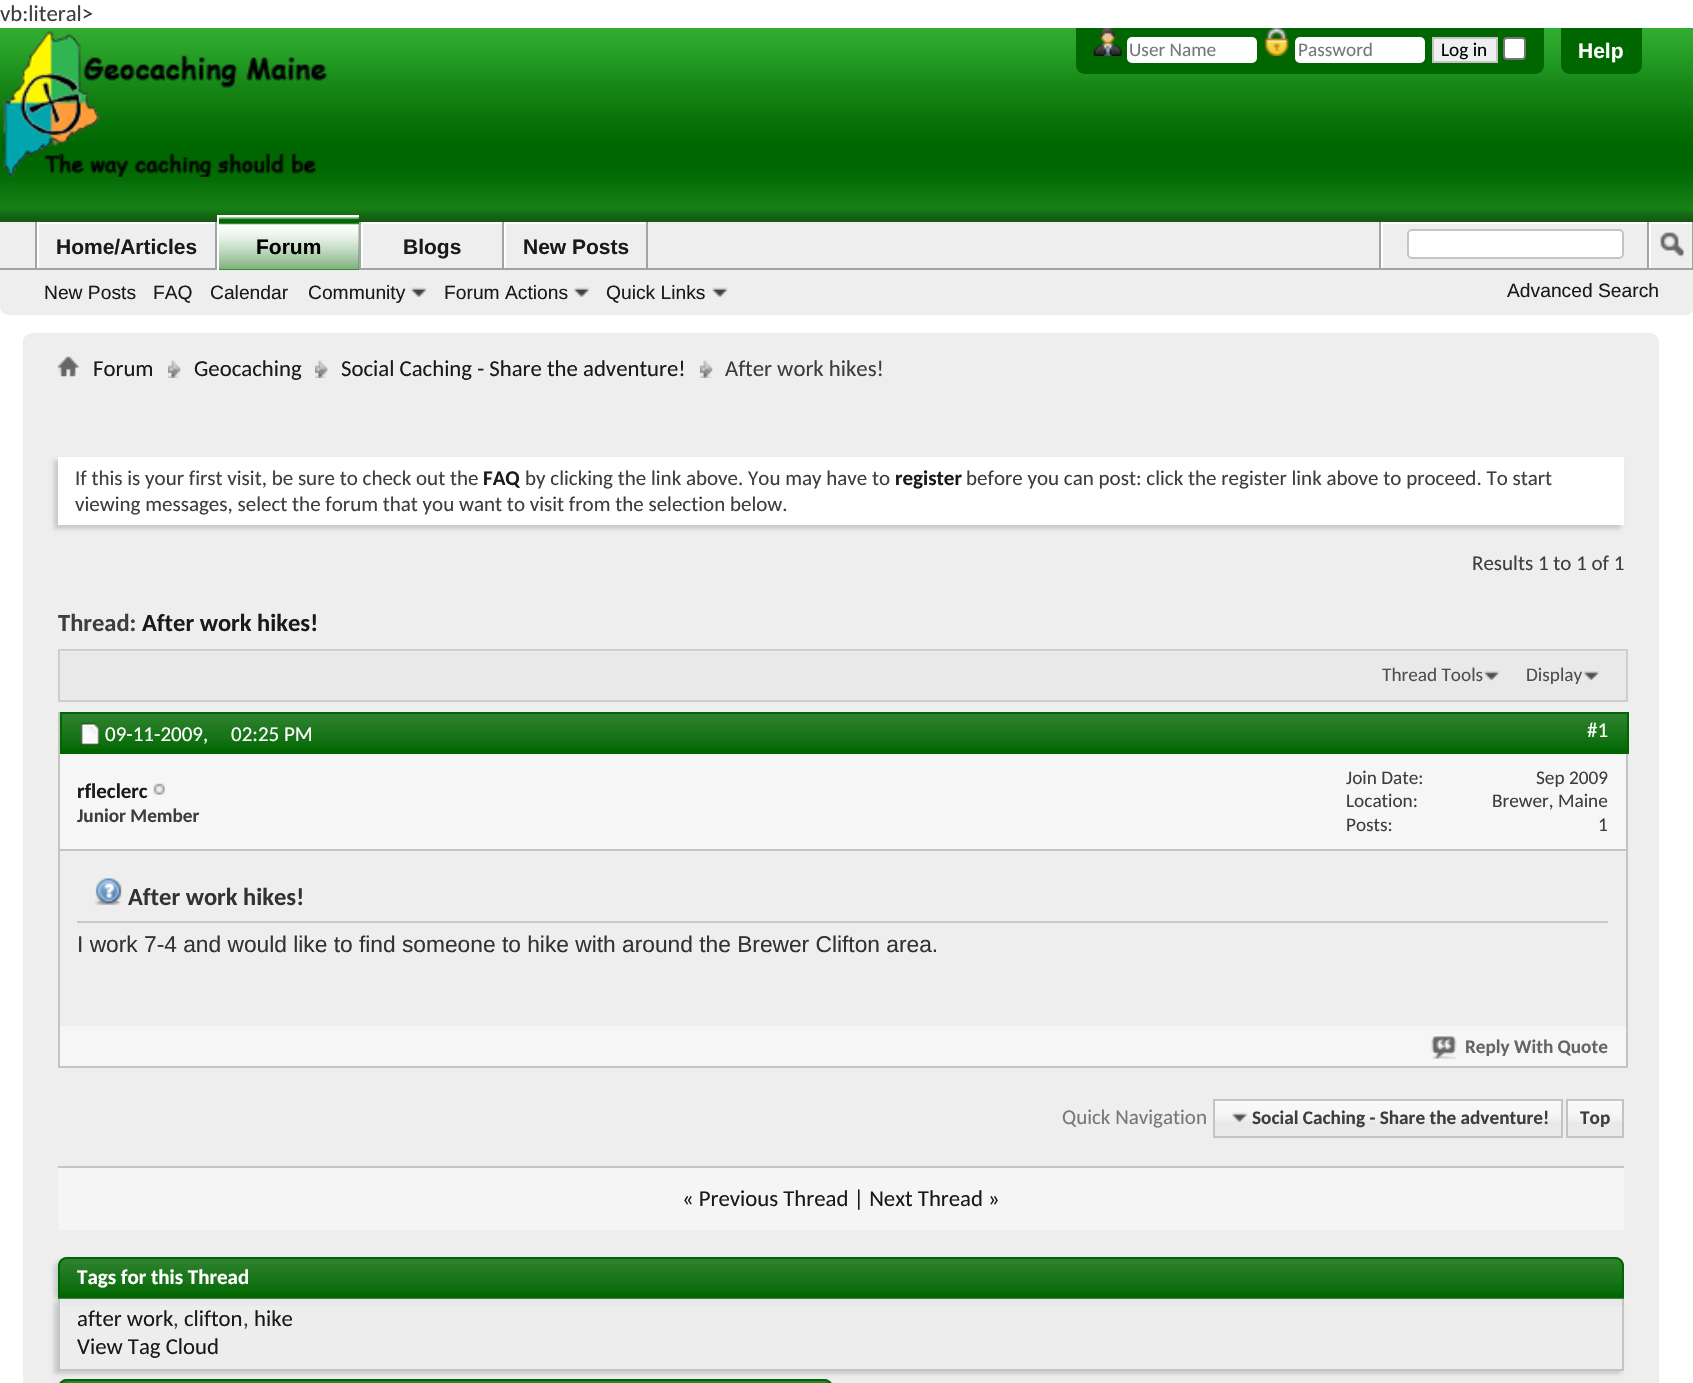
#include "include/core/SkBlurTypes.h"
#include "include/core/SkCanvas.h"
#include "include/core/SkData.h"
#include "include/core/SkFont.h"
#include "include/core/SkFontMgr.h"
#include "include/core/SkImage.h"
#include "include/core/SkMaskFilter.h"
#include "include/core/SkPaint.h"
#include "include/core/SkPathBuilder.h"
#include "include/core/SkTextBlob.h"
#include "include/effects/SkDashPathEffect.h"
#include "include/effects/SkGradientShader.h"
#include "include/utils/SkParsePath.h"

extern sk_sp<SkFontMgr> fontMgr;

void draw(SkCanvas* canvas) {
  SkPaint p;
  p.setAntiAlias(true);
  canvas->clear(SK_ColorWHITE);
  canvas->drawImageRect(SkImages::DeferredFromEncodedData(SkData::MakeFromFileName("images/1.png")), SkRect::MakeLTRB(0, 28, 1693, 222), SkSamplingOptions());
  canvas->drawImageRect(SkImages::DeferredFromEncodedData(SkData::MakeFromFileName("images/2.png")), SkRect::MakeLTRB(3, 31, 328, 177), SkSamplingOptions());
  p.setColor(SkColorSetRGB(0, 102, 0));
  canvas->drawPath(SkPathBuilder().moveTo(1076, 28).lineTo(1544, 28).lineTo(1544, 65).cubicTo(1544, 70, 1540, 74, 1535, 74).lineTo(1085, 74).cubicTo(1080, 74, 1076, 70, 1076, 65).close().detach(), p);
  canvas->drawImageRect(SkImages::DeferredFromEncodedData(SkData::MakeFromFileName("images/3.png")), SkRect::MakeLTRB(1093, 28, 1122, 56), SkSamplingOptions());
  p.setColor(SK_ColorWHITE);
  canvas->drawRoundRect(SkRect::MakeLTRB(1127, 37, 1257, 63), 5, 5, p);
  canvas->drawImageRect(SkImages::DeferredFromEncodedData(SkData::MakeFromFileName("images/4.png")), SkRect::MakeLTRB(1264, 28, 1289, 56), SkSamplingOptions());
  canvas->drawRoundRect(SkRect::MakeLTRB(1295, 37, 1425, 63), 5, 5, p);
  p.setColor(SkColorSetRGB(239, 239, 239));
  canvas->drawRect(SkRect::MakeLTRB(1433, 38, 1497, 62), p);
  p.setStyle(SkPaint::kStroke_Style);
  p.setStrokeWidth(2);
  p.setColor(SkColorSetRGB(196, 196, 196));
  canvas->drawRect(SkRect::MakeLTRB(1433, 38, 1497, 62), p);
  p.setStyle(SkPaint::kFill_Style);
  p.setColor(SK_ColorWHITE);
  canvas->drawRoundRect(SkRect::MakeLTRB(1504, 38, 1525, 59), 3, 3, p);
  p.setStyle(SkPaint::kStroke_Style);
  p.setColor(SkColorSetRGB(118, 118, 118));
  canvas->drawRoundRect(SkRect::MakeLTRB(1504, 38, 1525, 59), 3, 3, p);
  p.setStyle(SkPaint::kFill_Style);
  p.setColor(SkColorSetRGB(0, 102, 0));
  canvas->drawPath(SkPathBuilder().moveTo(1561, 28).lineTo(1642, 28).lineTo(1642, 65).cubicTo(1642, 70, 1638, 74, 1633, 74).lineTo(1570, 74).cubicTo(1565, 74, 1561, 70, 1561, 65).close().detach(), p);
  p.setColor(SkColorSetRGB(239, 238, 238));
  canvas->drawPath(SkPathBuilder().moveTo(0, 222).lineTo(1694, 222).lineTo(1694, 306).cubicTo(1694, 311, 1690, 315, 1685, 315).lineTo(9, 315).cubicTo(4, 315, 0, 311, 0, 306).close().detach(), p);
  p.setColor(SkColorSetRGB(163, 163, 163));
  canvas->drawRect(SkRect::MakeLTRB(215, 222, 217, 270), p);
  canvas->drawRect(SkRect::MakeLTRB(35, 222, 37, 270), p);
  p.setColor(SK_ColorWHITE);
  canvas->drawRect(SkRect::MakeLTRB(37, 222, 215, 224), p);
  canvas->drawRect(SkRect::MakeLTRB(37, 222, 39, 270), p);
  p.setColor(SkColorSetRGB(163, 163, 163));
  canvas->drawRect(SkRect::MakeLTRB(359, 222, 361, 268), p);
  canvas->drawRect(SkRect::MakeLTRB(502, 222, 504, 270), p);
  p.setColor(SK_ColorWHITE);
  canvas->drawRect(SkRect::MakeLTRB(361, 222, 502, 224), p);
  canvas->drawRect(SkRect::MakeLTRB(361, 222, 363, 270), p);
  p.setColor(SkColorSetRGB(163, 163, 163));
  canvas->drawRect(SkRect::MakeLTRB(646, 222, 648, 270), p);
  p.setColor(SK_ColorWHITE);
  canvas->drawRect(SkRect::MakeLTRB(504, 222, 646, 224), p);
  canvas->drawRect(SkRect::MakeLTRB(504, 222, 506, 270), p);
  p.setColor(SkColorSetRGB(163, 163, 163));
  canvas->drawRect(SkRect::MakeLTRB(0, 268, 1693, 270), p);
  p.setColor(SkColorSetRGB(0, 102, 0));
  canvas->drawRect(SkRect::MakeLTRB(219, 217, 359, 270), p);
  canvas->drawImageRect(SkImages::DeferredFromEncodedData(SkData::MakeFromFileName("images/5.png")), SkRect::MakeLTRB(219, 217, 359, 270), SkSamplingOptions());
  p.setColor(SK_ColorWHITE);
  canvas->drawRect(SkRect::MakeLTRB(217, 215, 359, 217), p);
  canvas->drawRect(SkRect::MakeLTRB(217, 215, 219, 270), p);
  canvas->drawImageRect(SkImages::DeferredFromEncodedData(SkData::MakeFromFileName("images/6.png")), SkRect::MakeLTRB(360, 224, 361, 245), SkSamplingOptions());
  canvas->drawImageRect(SkImages::DeferredFromEncodedData(SkData::MakeFromFileName("images/7.png")), SkRect::MakeLTRB(411, 287, 427, 297), SkSamplingOptions());
  canvas->drawImageRect(SkImages::DeferredFromEncodedData(SkData::MakeFromFileName("images/8.png")), SkRect::MakeLTRB(573, 287, 590, 297), SkSamplingOptions());
  canvas->drawImageRect(SkImages::DeferredFromEncodedData(SkData::MakeFromFileName("images/9.png")), SkRect::MakeLTRB(712, 287, 728, 297), SkSamplingOptions());
  p.setColor(SkColorSetRGB(163, 163, 163));
  canvas->drawRect(SkRect::MakeLTRB(1379, 222, 1381, 268), p);
  p.setColor(SK_ColorWHITE);
  canvas->drawRect(SkRect::MakeLTRB(1381, 222, 1647, 224), p);
  canvas->drawRect(SkRect::MakeLTRB(1381, 222, 1383, 268), p);
  canvas->drawRoundRect(SkRect::MakeLTRB(1408, 230, 1623, 258), 4, 4, p);
  p.setStyle(SkPaint::kStroke_Style);
  p.setColor(SkColorSetRGB(196, 196, 196));
  canvas->drawRoundRect(SkRect::MakeLTRB(1408, 230, 1623, 258), 4, 4, p);
  p.setStyle(SkPaint::kFill_Style);
  p.setColor(SkColorSetRGB(163, 163, 163));
  canvas->drawRect(SkRect::MakeLTRB(1692, 222, 1693, 268), p);
  canvas->drawRect(SkRect::MakeLTRB(1647, 222, 1649, 268), p);
  p.setColor(SK_ColorWHITE);
  canvas->drawRect(SkRect::MakeLTRB(1649, 222, 1692, 224), p);
  canvas->drawRect(SkRect::MakeLTRB(1649, 222, 1651, 268), p);
  canvas->drawImageRect(SkImages::DeferredFromEncodedData(SkData::MakeFromFileName("images/10.png")), SkRect::MakeLTRB(1660, 232, 1684, 258), SkSamplingOptions());
  p.setColor(SkColorSetRGB(239, 238, 238));
  canvas->drawRoundRect(SkRect::MakeLTRB(23, 333, 1659, 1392), 9, 9, p);
  canvas->drawImageRect(SkImages::DeferredFromEncodedData(SkData::MakeFromFileName("images/11.png")), SkRect::MakeLTRB(57, 356, 79, 377), SkSamplingOptions());
  canvas->drawImageRect(SkImages::DeferredFromEncodedData(SkData::MakeFromFileName("images/12.png")), SkRect::MakeLTRB(168, 360, 181, 378), SkSamplingOptions());
  canvas->drawImageRect(SkImages::DeferredFromEncodedData(SkData::MakeFromFileName("images/13.png")), SkRect::MakeLTRB(315, 360, 328, 378), SkSamplingOptions());
  canvas->drawImageRect(SkImages::DeferredFromEncodedData(SkData::MakeFromFileName("images/12.png")), SkRect::MakeLTRB(700, 360, 713, 378), SkSamplingOptions());
  p.setColor(SkColorSetRGB(199, 203, 204));
  p.setMaskFilter(SkMaskFilter::MakeBlur(kNormal_SkBlurStyle, 2));
  canvas->drawRect(SkRect::MakeLTRB(54, 460, 1621, 529), p);
  p.setMaskFilter(nullptr);
  p.setColor(SK_ColorWHITE);
  canvas->drawRect(SkRect::MakeLTRB(58, 457, 1624, 525), p);
  p.setColor(SkColorSetRGB(233, 233, 233));
  canvas->drawRect(SkRect::MakeLTRB(60, 652, 1626, 700), p);
  p.setStyle(SkPaint::kStroke_Style);
  p.setColor(SkColorSetRGB(206, 206, 206));
  canvas->drawRect(SkRect::MakeLTRB(59, 650, 1627, 701), p);
  canvas->drawImageRect(SkImages::DeferredFromEncodedData(SkData::MakeFromFileName("images/14.png")), SkRect::MakeLTRB(1483, 670, 1500, 682), SkSamplingOptions());
  canvas->drawImageRect(SkImages::DeferredFromEncodedData(SkData::MakeFromFileName("images/15.png")), SkRect::MakeLTRB(1583, 671, 1600, 682), SkSamplingOptions());
  p.setColor(SkColorSetRGB(196, 196, 196));
  canvas->drawRect(SkRect::MakeLTRB(59, 713, 1627, 1067), p);
  p.setStyle(SkPaint::kFill_Style);
  p.setColor(SkColorSetRGB(0, 102, 0));
  canvas->drawRect(SkRect::MakeLTRB(62, 714, 1627, 752), p);
  canvas->drawImageRect(SkImages::DeferredFromEncodedData(SkData::MakeFromFileName("images/16.png")), SkRect::MakeLTRB(59, 714, 1627, 749), SkSamplingOptions());
  p.setStyle(SkPaint::kStroke_Style);
  canvas->drawRect(SkRect::MakeLTRB(61, 713, 1628, 753), p);
  canvas->drawImageRect(SkImages::DeferredFromEncodedData(SkData::MakeFromFileName("images/17.png")), SkRect::MakeLTRB(80, 722, 101, 746), SkSamplingOptions());
  p.setStyle(SkPaint::kFill_Style);
  p.setColor(SkColorSetRGB(246, 246, 246));
  canvas->drawRect(SkRect::MakeLTRB(60, 754, 1626, 849), p);
  p.setColor(SkColorSetRGB(196, 196, 196));
  canvas->drawRect(SkRect::MakeLTRB(60, 849, 1626, 851), p);
  canvas->drawImageRect(SkImages::DeferredFromEncodedData(SkData::MakeFromFileName("images/18.png")), SkRect::MakeLTRB(153, 783, 165, 795), SkSamplingOptions());
  p.setColor(SkColorSetRGB(200, 200, 200));
  canvas->drawRect(SkRect::MakeLTRB(77, 921, 1608, 923), p);
  canvas->drawImageRect(SkImages::DeferredFromEncodedData(SkData::MakeFromFileName("images/19.png")), SkRect::MakeLTRB(94, 878, 122, 905), SkSamplingOptions());
  p.setColor(SkColorSetRGB(246, 246, 246));
  canvas->drawRect(SkRect::MakeLTRB(60, 1026, 1626, 1066), p);
  canvas->drawImageRect(SkImages::DeferredFromEncodedData(SkData::MakeFromFileName("images/20.png")), SkRect::MakeLTRB(1431, 1036, 1457, 1059), SkSamplingOptions());
  p.setColor(SkColorSetRGB(233, 233, 233));
  canvas->drawRect(SkRect::MakeLTRB(1215, 1101, 1561, 1136), p);
  canvas->drawImageRect(SkImages::DeferredFromEncodedData(SkData::MakeFromFileName("images/21.png")), SkRect::MakeLTRB(1215, 1101, 1561, 1122), SkSamplingOptions());
  canvas->drawRect(SkRect::MakeLTRB(1568, 1101, 1622, 1136), p);
  canvas->drawImageRect(SkImages::DeferredFromEncodedData(SkData::MakeFromFileName("images/22.png")), SkRect::MakeLTRB(1568, 1101, 1622, 1122), SkSamplingOptions());
  p.setStyle(SkPaint::kStroke_Style);
  p.setColor(SkColorSetRGB(196, 196, 196));
  canvas->drawRect(SkRect::MakeLTRB(1214, 1100, 1562, 1137), p);
  canvas->drawImageRect(SkImages::DeferredFromEncodedData(SkData::MakeFromFileName("images/23.png")), SkRect::MakeLTRB(1231, 1112, 1248, 1124), SkSamplingOptions());
  canvas->drawRect(SkRect::MakeLTRB(1567, 1100, 1623, 1137), p);
  p.setStyle(SkPaint::kFill_Style);
  p.setColor(SkColorSetRGB(245, 245, 245));
  canvas->drawRect(SkRect::MakeLTRB(58, 1168, 1624, 1230), p);
  p.setColor(SkColorSetRGB(196, 196, 196));
  canvas->drawRect(SkRect::MakeLTRB(58, 1166, 1624, 1168), p);
  p.setColor(SkColorSetRGB(199, 203, 204));
  p.setMaskFilter(SkMaskFilter::MakeBlur(kNormal_SkBlurStyle, 2));
  canvas->drawRoundRect(SkRect::MakeLTRB(54, 1260, 1621, 1302), 9, 9, p);
  p.setMaskFilter(nullptr);
  p.setColor(SkColorSetRGB(0, 102, 0));
  canvas->drawPath(SkPathBuilder().moveTo(67, 1257).lineTo(1615, 1257).cubicTo(1620, 1257, 1624, 1261, 1624, 1266).lineTo(1624, 1299).lineTo(58, 1299).lineTo(58, 1266).cubicTo(58, 1261, 62, 1257, 67, 1257).close().detach(), p);
  canvas->drawImageRect(SkImages::DeferredFromEncodedData(SkData::MakeFromFileName("images/24.png")), SkRect::MakeLTRB(58, 1258, 1624, 1294), SkSamplingOptions());
  p.setStyle(SkPaint::kStroke_Style);
  canvas->drawPath(SkPathBuilder().moveTo(67, 1258).lineTo(1615, 1258).cubicTo(1619.5f, 1258, 1623, 1261.5f, 1623, 1266).lineTo(1623, 1298).lineTo(59, 1298).lineTo(59, 1266).cubicTo(59, 1261.5f, 62.5f, 1258, 67, 1258).close().detach(), p);
  p.setStyle(SkPaint::kFill_Style);
  p.setColor(SkColorSetRGB(199, 203, 204));
  p.setMaskFilter(SkMaskFilter::MakeBlur(kNormal_SkBlurStyle, 2));
  canvas->drawRect(SkRect::MakeLTRB(54, 1302, 1621, 1374), p);
  p.setMaskFilter(nullptr);
  p.setColor(SkColorSetRGB(237, 237, 237));
  canvas->drawRect(SkRect::MakeLTRB(60, 1299, 1622, 1369), p);
  canvas->drawImageRect(SkImages::DeferredFromEncodedData(SkData::MakeFromFileName("images/25.png")), SkRect::MakeLTRB(58, 1298, 1624, 1306), SkSamplingOptions());
  p.setColor(SkColorSetRGB(196, 196, 196));
  canvas->drawRect(SkRect::MakeLTRB(1622, 1299, 1624, 1370), p);
  canvas->drawRect(SkRect::MakeLTRB(58, 1369, 1624, 1371), p);
  canvas->drawRect(SkRect::MakeLTRB(58, 1299, 60, 1370), p);
  p.setColor(SkColorSetRGB(199, 203, 204));
  p.setMaskFilter(SkMaskFilter::MakeBlur(kNormal_SkBlurStyle, 2));
  canvas->drawRoundRect(SkRect::MakeLTRB(54, 1383, 830, 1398), 9, 9, p);
  p.setMaskFilter(nullptr);
  p.setColor(SkColorSetRGB(0, 102, 0));
  canvas->drawPath(SkPathBuilder().moveTo(67, 1379).lineTo(824, 1379).cubicTo(829, 1379, 833, 1383, 833, 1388).lineTo(833, 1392).lineTo(58, 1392).lineTo(58, 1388).cubicTo(58, 1383, 62, 1379, 67, 1379).close().detach(), p);
  p.setColor(SkColorSetARGB(46, 255, 255, 255));
  canvas->drawRect(SkRect::MakeLTRB(60, 1380, 831, 1383), p);
  p.setStyle(SkPaint::kStroke_Style);
  p.setColor(SkColorSetRGB(0, 102, 0));
  canvas->drawPath(SkPathBuilder().moveTo(67, 1380).lineTo(824, 1380).cubicTo(828.5f, 1380, 832, 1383.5f, 832, 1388).lineTo(832, 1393).lineTo(59, 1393).lineTo(59, 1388).cubicTo(59, 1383.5f, 62.5f, 1380, 67, 1380).close().detach(), p);
  SkFont font1(fontMgr->matchFamilyStyle("Carlito", SkFontStyle::Normal()), 22.75f);
  font1.setSubpixel(true);
  p.setStyle(SkPaint::kFill_Style);
  p.setColor(SkColorSetRGB(62, 62, 62));
  canvas->drawString("vb:literal>", 0, 21, font1, p);
  SkFont font2(fontMgr->matchFamilyStyle("Carlito", SkFontStyle::Normal()), 19.25f);
  font2.setSubpixel(true);
  p.setColor(SkColorSetRGB(119, 119, 119));
  canvas->drawString("User Name", 1129, 56, font2, p);
  canvas->drawString("Password", 1298, 56, font2, p);
  p.setColor(SK_ColorBLACK);
  canvas->drawString("Log in", 1441, 56, font2, p);
  SkFont font3(fontMgr->matchFamilyStyle("Liberation Sans", SkFontStyle::Bold()), 21);
  font3.setSubpixel(true);
  p.setColor(SK_ColorWHITE);
  canvas->drawString("Help", 1578, 58, font3, p);
  p.setColor(SkColorSetRGB(26, 26, 26));
  canvas->drawString("Home/Articles", 56, 254, font3, p);
  p.setColor(SK_ColorBLACK);
  canvas->drawString("Forum", 256, 254, font3, p);
  p.setColor(SkColorSetRGB(26, 26, 26));
  canvas->drawString("Blogs", 403, 254, font3, p);
  canvas->drawString("New Posts", 523, 254, font3, p);
  SkFont font4(fontMgr->matchFamilyStyle("Liberation Sans", SkFontStyle::Normal()), 19.25f);
  font4.setSubpixel(true);
  canvas->drawString("New Posts", 44, 299, font4, p);
  canvas->drawString("FAQ", 153, 299, font4, p);
  canvas->drawString("Calendar", 210, 299, font4, p);
  canvas->drawString("Community", 308, 299, font4, p);
  canvas->drawString("Forum Actions", 444, 299, font4, p);
  canvas->drawString("Quick Links", 606, 299, font4, p);
  canvas->drawString("Advanced Search", 1507, 297, font4, p);
  canvas->drawString("Forum", 93, 376, font1, p);
  canvas->drawString("Geocaching", 194, 376, font1, p);
  canvas->drawString("Social Caching - Share the adventure!", 341, 376, font1, p);
  p.setColor(SkColorSetRGB(62, 62, 62));
  canvas->drawString("After work hikes!", 725, 376, font1, p);
  SkFont font5(fontMgr->matchFamilyStyle("Carlito", SkFontStyle::Normal()), 21);
  font5.setSubpixel(true);
  canvas->drawString("If this is your first visit, be sure to check out the", 75, 485, font5, p);
  SkFont font6(fontMgr->matchFamilyStyle("Carlito", SkFontStyle::Bold()), 21);
  font6.setSubpixel(true);
  p.setColor(SkColorSetRGB(26, 26, 26));
  canvas->drawString("FAQ", 483, 485, font6, p);
  p.setColor(SkColorSetRGB(62, 62, 62));
  canvas->drawString("by clicking the link above. You may have to", 525, 485, font5, p);
  p.setColor(SkColorSetRGB(26, 26, 26));
  canvas->drawString("register", 895, 485, font6, p);
  p.setColor(SkColorSetRGB(62, 62, 62));
  canvas->drawString("before you can post: click the register link above to proceed. To start", 966, 485, font5, p);
  canvas->drawString("viewing messages, select the forum that you want to visit from the selection below.", 75, 511, font5, p);
  canvas->drawString("Results 1 to 1 of 1", 1472, 570, font5, p);
  SkFont font7(fontMgr->matchFamilyStyle("Carlito", SkFontStyle::Bold()), 24.5f);
  font7.setSubpixel(true);
  canvas->drawString("Thread:", 58, 631, font7, p);
  p.setColor(SkColorSetRGB(26, 26, 26));
  canvas->drawString("After work hikes!", 142, 631, font7, p);
  p.setColor(SkColorSetRGB(78, 78, 78));
  canvas->drawString("Thread Tools", 1382, 681, font2, p);
  canvas->drawString("Display", 1526, 681, font2, p);
  p.setColor(SK_ColorWHITE);
  canvas->drawString("09-11-2009,", 105, 741, font5, p);
  canvas->drawString("02:25 PM", 231, 741, font5, p);
  canvas->drawString("#1", 1587, 737, font5, p);
  p.setColor(SkColorSetRGB(26, 26, 26));
  canvas->drawString("rfleclerc", 77, 798, font6, p);
  SkFont font8(fontMgr->matchFamilyStyle("Carlito", SkFontStyle::Bold()), 19.25f);
  font8.setSubpixel(true);
  p.setColor(SkColorSetRGB(62, 62, 62));
  canvas->drawString("Junior Member", 77, 822, font8, p);
  canvas->drawString("Join Date:", 1346, 784, font2, p);
  canvas->drawString("Sep 2009", 1536, 784, font2, p);
  canvas->drawString("Location:", 1346, 807, font2, p);
  canvas->drawString("Brewer, Maine", 1492, 807, font2, p);
  canvas->drawString("Posts:", 1346, 831, font2, p);
  canvas->drawString("1", 1598, 831, font2, p);
  p.setColor(SkColorSetRGB(51, 51, 51));
  canvas->drawString("After work hikes!", 128, 905, font7, p);
  SkFont font9(fontMgr->matchFamilyStyle("Liberation Sans", SkFontStyle::Normal()), 22.75f);
  font9.setSubpixel(true);
  canvas->drawString("I work 7-4 and would like to find someone to hike with around the Brewer Clifton area.", 77, 952, font9, p);
  p.setColor(SkColorSetRGB(101, 101, 101));
  canvas->drawString("Reply With Quote", 1465, 1053, font8, p);
  p.setColor(SkColorSetRGB(119, 119, 119));
  canvas->drawString("Quick Navigation", 1062, 1124, font5, p);
  p.setColor(SkColorSetRGB(62, 62, 62));
  canvas->drawString("Social Caching - Share the adventure!", 1252, 1124, font8, p);
  canvas->drawString("Top", 1580, 1124, font8, p);
  p.setColor(SkColorSetRGB(26, 26, 26));
  canvas->drawString("« Previous Thread | Next Thread »", 682, 1206, font1, p);
  p.setColor(SK_ColorWHITE);
  canvas->drawString("Tags for this Thread", 77, 1284, font6, p);
  p.setColor(SkColorSetRGB(26, 26, 26));
  canvas->drawString("after work", 77, 1326, font1, p);
  p.setColor(SkColorSetRGB(62, 62, 62));
  canvas->drawString(",", 173, 1326, font1, p);
  p.setColor(SkColorSetRGB(26, 26, 26));
  canvas->drawString("clifton", 184, 1326, font1, p);
  p.setColor(SkColorSetRGB(62, 62, 62));
  canvas->drawString(",", 243, 1326, font1, p);
  p.setColor(SkColorSetRGB(26, 26, 26));
  canvas->drawString("hike", 254, 1326, font1, p);
  canvas->drawString("View Tag Cloud", 77, 1354, font1, p);
}
